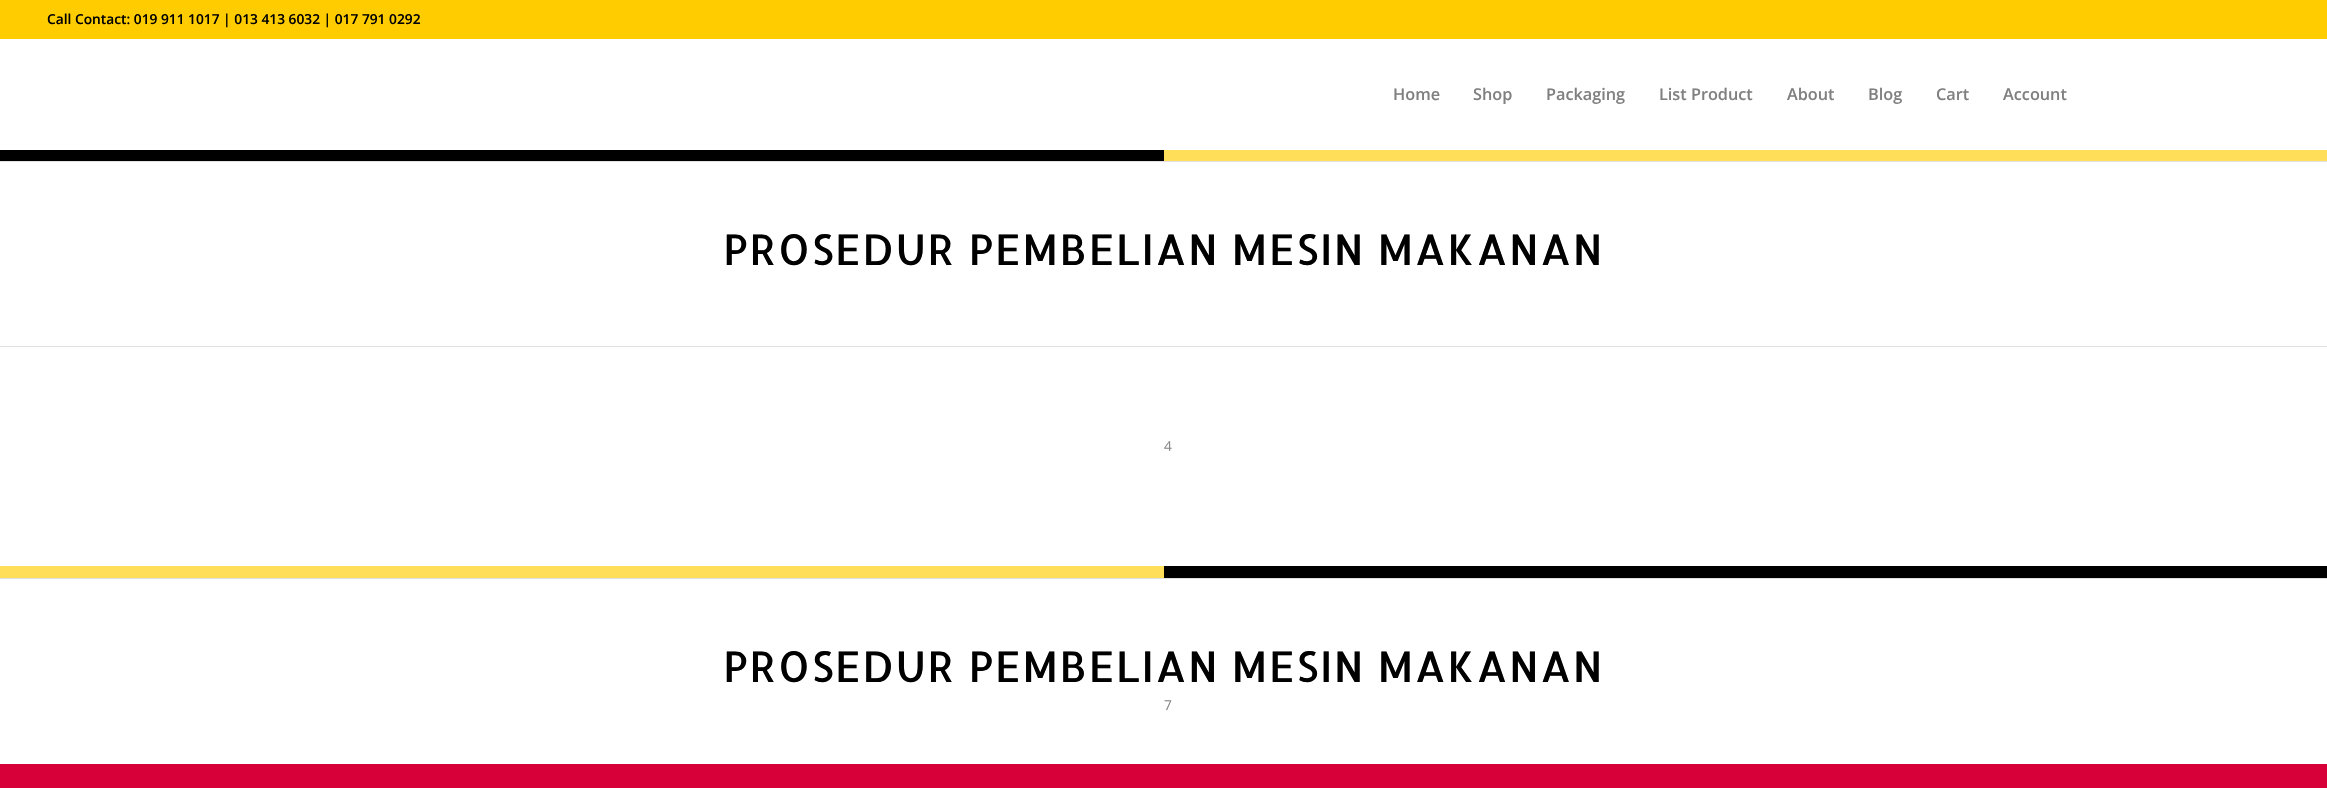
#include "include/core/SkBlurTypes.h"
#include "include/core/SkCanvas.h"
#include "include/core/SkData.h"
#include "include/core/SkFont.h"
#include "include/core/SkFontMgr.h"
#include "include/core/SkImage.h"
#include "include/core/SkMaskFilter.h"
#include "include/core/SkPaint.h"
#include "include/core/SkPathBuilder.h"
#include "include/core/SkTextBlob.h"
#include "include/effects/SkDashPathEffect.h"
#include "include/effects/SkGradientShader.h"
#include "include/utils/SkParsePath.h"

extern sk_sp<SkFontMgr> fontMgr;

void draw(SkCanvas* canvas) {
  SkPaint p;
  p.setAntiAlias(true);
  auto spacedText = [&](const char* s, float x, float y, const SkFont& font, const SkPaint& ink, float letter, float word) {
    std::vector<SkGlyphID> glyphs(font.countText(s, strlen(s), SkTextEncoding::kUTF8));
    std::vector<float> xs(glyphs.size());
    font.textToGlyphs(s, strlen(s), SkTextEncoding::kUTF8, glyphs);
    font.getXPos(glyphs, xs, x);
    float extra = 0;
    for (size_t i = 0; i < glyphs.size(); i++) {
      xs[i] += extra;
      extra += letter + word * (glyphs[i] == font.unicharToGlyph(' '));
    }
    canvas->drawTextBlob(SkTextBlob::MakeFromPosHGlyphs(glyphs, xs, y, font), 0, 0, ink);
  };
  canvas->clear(SK_ColorWHITE);
  p.setColor(SkColorSetRGB(255, 204, 0));
  canvas->drawRect(SkRect::MakeLTRB(0, 0, 2327, 39), p);
  p.setColor(SK_ColorBLACK);
  canvas->drawRect(SkRect::MakeLTRB(0, 150, 1164, 161), p);
  p.setColor(SkColorSetRGB(255, 223, 90));
  canvas->drawRect(SkRect::MakeLTRB(1164, 150, 2327, 161), p);
  p.setColor(SkColorSetRGB(225, 225, 225));
  canvas->drawRect(SkRect::MakeLTRB(0, 161, 2327, 162), p);
  canvas->drawRect(SkRect::MakeLTRB(0, 346, 2327, 347), p);
  p.setColor(SkColorSetRGB(255, 223, 90));
  canvas->drawRect(SkRect::MakeLTRB(0, 566, 1164, 578), p);
  p.setColor(SK_ColorBLACK);
  canvas->drawRect(SkRect::MakeLTRB(1164, 566, 2327, 578), p);
  p.setColor(SkColorSetRGB(225, 225, 225));
  canvas->drawRect(SkRect::MakeLTRB(0, 578, 2327, 579), p);
  p.setColor(SkColorSetRGB(216, 0, 57));
  canvas->drawRect(SkRect::MakeLTRB(0, 764, 2327, 788), p);
  SkFont font1(fontMgr->matchFamilyStyle("Open Sans", SkFontStyle(600, SkFontStyle::kNormal_Width, SkFontStyle::kUpright_Slant)), 13.75f);
  font1.setSubpixel(true);
  p.setColor(SK_ColorBLACK);
  canvas->drawString("Call Contact: 019 911 1017 | 013 413 6032 | 017 791 0292", 47, 24, font1, p);
  SkFont font2(fontMgr->matchFamilyStyle("Open Sans", SkFontStyle(600, SkFontStyle::kNormal_Width, SkFontStyle::kUpright_Slant)), 16.25f);
  font2.setSubpixel(true);
  p.setColor(SkColorSetRGB(128, 128, 128));
  canvas->drawString("Home", 1393, 100, font2, p);
  canvas->drawString("Shop", 1473, 100, font2, p);
  canvas->drawString("Packaging", 1546, 100, font2, p);
  canvas->drawString("List Product", 1659, 100, font2, p);
  canvas->drawString("About", 1787, 100, font2, p);
  canvas->drawString("Blog", 1868, 100, font2, p);
  canvas->drawString("Cart", 1936, 100, font2, p);
  canvas->drawString("Account", 2003, 100, font2, p);
  SkFont font3(fontMgr->matchFamilyStyle("Allerta", SkFontStyle::Normal()), 42.5f);
  font3.setSubpixel(true);
  p.setColor(SK_ColorBLACK);
  spacedText("PROSEDUR PEMBELIAN MESIN MAKANAN", 723, 265, font3, p, 1.25f, 0);
  SkFont font4(fontMgr->matchFamilyStyle("Open Sans", SkFontStyle::Normal()), 13.75f);
  font4.setSubpixel(true);
  p.setColor(SkColorSetRGB(136, 136, 136));
  canvas->drawString("4", 1164, 451, font4, p);
  p.setColor(SK_ColorBLACK);
  spacedText("PROSEDUR PEMBELIAN MESIN MAKANAN", 723, 682, font3, p, 1.25f, 0);
  p.setColor(SkColorSetRGB(136, 136, 136));
  canvas->drawString("7", 1164, 710, font4, p);
}
